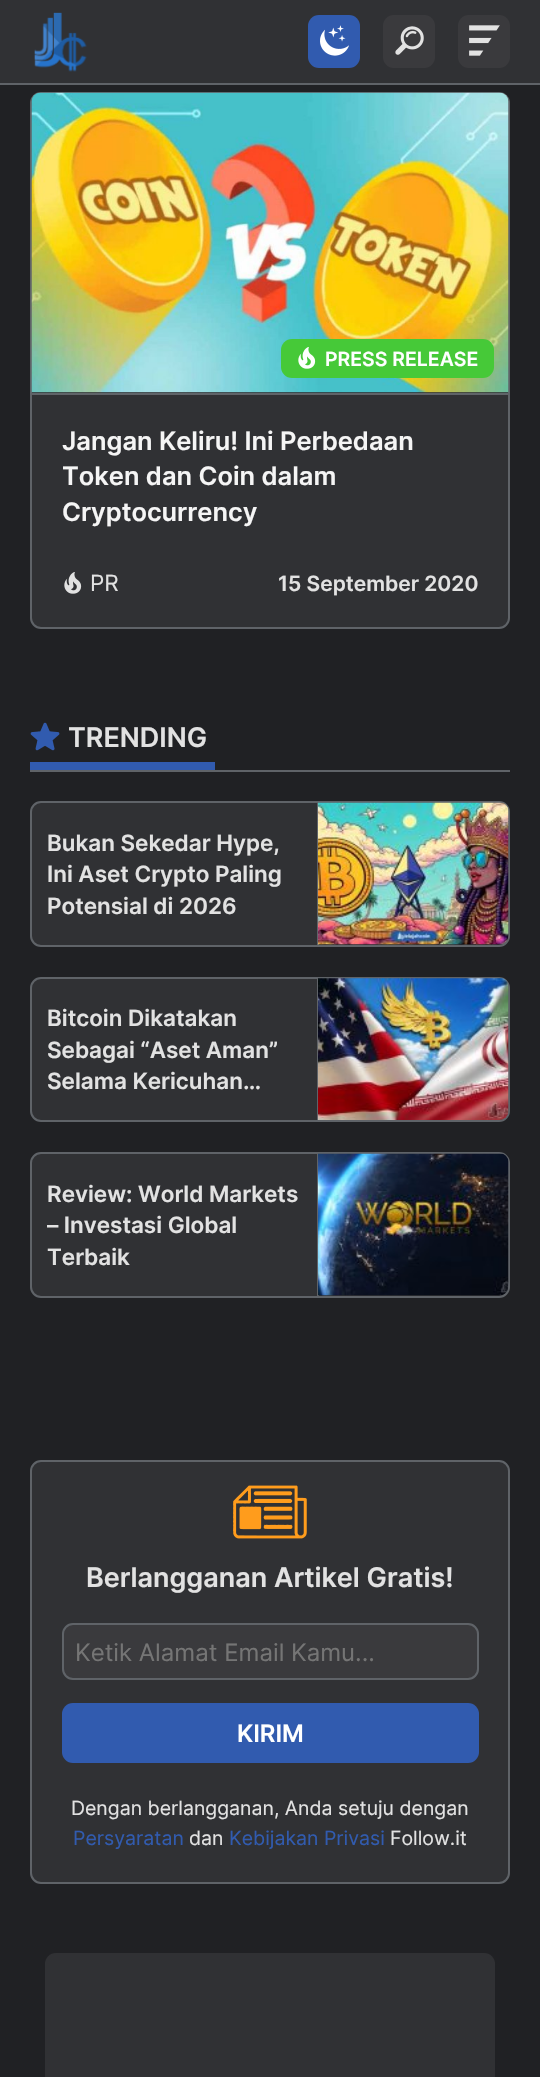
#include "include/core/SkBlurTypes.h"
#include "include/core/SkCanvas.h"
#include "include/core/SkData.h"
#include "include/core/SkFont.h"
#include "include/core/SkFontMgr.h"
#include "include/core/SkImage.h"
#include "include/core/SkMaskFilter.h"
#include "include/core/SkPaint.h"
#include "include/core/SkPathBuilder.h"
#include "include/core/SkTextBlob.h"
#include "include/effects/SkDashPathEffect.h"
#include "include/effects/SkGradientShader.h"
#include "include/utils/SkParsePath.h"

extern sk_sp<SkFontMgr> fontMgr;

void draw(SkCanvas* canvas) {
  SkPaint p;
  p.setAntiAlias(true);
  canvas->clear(SkColorSetRGB(32, 33, 36));
  p.setColor(SkColorSetRGB(48, 49, 52));
  canvas->drawRect(SkRect::MakeLTRB(0, 0, 540, 83), p);
  p.setColor(SkColorSetRGB(95, 99, 104));
  canvas->drawRect(SkRect::MakeLTRB(0, 83, 540, 85), p);
  canvas->drawImageRect(SkImages::DeferredFromEncodedData(SkData::MakeFromFileName("images/1.png")), SkRect::MakeLTRB(34, 12, 87, 72), SkSamplingOptions());
  p.setColor(SkColorSetRGB(49, 91, 175));
  canvas->drawRoundRect(SkRect::MakeLTRB(308, 15, 360, 68), 11, 11, p);
  canvas->drawImageRect(SkImages::DeferredFromEncodedData(SkData::MakeFromFileName("images/2.png")), SkRect::MakeLTRB(320, 25, 349, 56), SkSamplingOptions());
  p.setColor(SkColorSetRGB(58, 58, 61));
  canvas->drawRoundRect(SkRect::MakeLTRB(383, 15, 435, 68), 11, 11, p);
  canvas->drawImageRect(SkImages::DeferredFromEncodedData(SkData::MakeFromFileName("images/3.png")), SkRect::MakeLTRB(395, 26, 424, 55), SkSamplingOptions());
  canvas->drawRoundRect(SkRect::MakeLTRB(458, 15, 510, 68), 11, 11, p);
  canvas->drawImageRect(SkImages::DeferredFromEncodedData(SkData::MakeFromFileName("images/4.png")), SkRect::MakeLTRB(469, 25, 500, 56), SkSamplingOptions());
  p.setColor(SkColorSetRGB(48, 49, 52));
  canvas->drawRoundRect(SkRect::MakeLTRB(31, 93, 509, 628), 10, 10, p);
  p.setStyle(SkPaint::kStroke_Style);
  p.setStrokeWidth(2);
  p.setColor(SkColorSetRGB(95, 99, 104));
  canvas->drawRoundRect(SkRect::MakeLTRB(31, 93, 509, 628), 10, 10, p);
  p.setStyle(SkPaint::kFill_Style);
  canvas->drawRect(SkRect::MakeLTRB(32, 393, 509, 395), p);
  canvas->drawImageRect(SkImages::DeferredFromEncodedData(SkData::MakeFromFileName("images/5.png")), SkRect::MakeLTRB(31, 92, 509, 393), SkSamplingOptions());
  p.setColor(SkColorSetRGB(70, 201, 56));
  canvas->drawRoundRect(SkRect::MakeLTRB(281, 339, 494, 378), 11, 11, p);
  canvas->drawImageRect(SkImages::DeferredFromEncodedData(SkData::MakeFromFileName("images/6.png")), SkRect::MakeLTRB(298, 347, 316, 369), SkSamplingOptions());
  canvas->drawImageRect(SkImages::DeferredFromEncodedData(SkData::MakeFromFileName("images/7.png")), SkRect::MakeLTRB(64, 572, 82, 594), SkSamplingOptions());
  p.setColor(SkColorSetRGB(95, 99, 104));
  canvas->drawRect(SkRect::MakeLTRB(30, 770, 510, 772), p);
  p.setColor(SkColorSetRGB(49, 91, 175));
  canvas->drawRect(SkRect::MakeLTRB(30, 762, 215, 770), p);
  canvas->drawImageRect(SkImages::DeferredFromEncodedData(SkData::MakeFromFileName("images/8.png")), SkRect::MakeLTRB(30, 722, 60, 751), SkSamplingOptions());
  p.setColor(SkColorSetRGB(48, 49, 52));
  canvas->drawRoundRect(SkRect::MakeLTRB(31, 802, 509, 946), 10, 10, p);
  p.setStyle(SkPaint::kStroke_Style);
  p.setColor(SkColorSetRGB(95, 99, 104));
  canvas->drawRoundRect(SkRect::MakeLTRB(31, 802, 509, 946), 10, 10, p);
  p.setStyle(SkPaint::kFill_Style);
  canvas->drawRect(SkRect::MakeLTRB(317, 803, 319, 945), p);
  canvas->drawImageRect(SkImages::DeferredFromEncodedData(SkData::MakeFromFileName("images/9.png")), SkRect::MakeLTRB(318, 802, 509, 945), SkSamplingOptions());
  p.setColor(SkColorSetRGB(48, 49, 52));
  canvas->drawRoundRect(SkRect::MakeLTRB(31, 978, 509, 1121), 10, 10, p);
  p.setStyle(SkPaint::kStroke_Style);
  p.setColor(SkColorSetRGB(95, 99, 104));
  canvas->drawRoundRect(SkRect::MakeLTRB(31, 978, 509, 1121), 10, 10, p);
  p.setStyle(SkPaint::kFill_Style);
  canvas->drawRect(SkRect::MakeLTRB(317, 978, 319, 1121), p);
  canvas->drawImageRect(SkImages::DeferredFromEncodedData(SkData::MakeFromFileName("images/10.png")), SkRect::MakeLTRB(318, 978, 509, 1120), SkSamplingOptions());
  p.setColor(SkColorSetRGB(48, 49, 52));
  canvas->drawRoundRect(SkRect::MakeLTRB(31, 1153, 509, 1297), 10, 10, p);
  p.setStyle(SkPaint::kStroke_Style);
  p.setColor(SkColorSetRGB(95, 99, 104));
  canvas->drawRoundRect(SkRect::MakeLTRB(31, 1153, 509, 1297), 10, 10, p);
  p.setStyle(SkPaint::kFill_Style);
  canvas->drawRect(SkRect::MakeLTRB(317, 1154, 319, 1296), p);
  canvas->drawImageRect(SkImages::DeferredFromEncodedData(SkData::MakeFromFileName("images/11.png")), SkRect::MakeLTRB(318, 1153, 509, 1296), SkSamplingOptions());
  p.setColor(SkColorSetRGB(48, 49, 52));
  canvas->drawRoundRect(SkRect::MakeLTRB(31, 1461, 509, 1883), 10, 10, p);
  p.setStyle(SkPaint::kStroke_Style);
  p.setColor(SkColorSetRGB(95, 99, 104));
  canvas->drawRoundRect(SkRect::MakeLTRB(31, 1461, 509, 1883), 10, 10, p);
  canvas->drawImageRect(SkImages::DeferredFromEncodedData(SkData::MakeFromFileName("images/12.png")), SkRect::MakeLTRB(233, 1485, 307, 1539), SkSamplingOptions());
  p.setStyle(SkPaint::kFill_Style);
  p.setColor(SkColorSetRGB(58, 58, 61));
  canvas->drawRoundRect(SkRect::MakeLTRB(63, 1624, 478, 1679), 10, 10, p);
  p.setStyle(SkPaint::kStroke_Style);
  p.setColor(SkColorSetRGB(95, 99, 104));
  canvas->drawRoundRect(SkRect::MakeLTRB(63, 1624, 478, 1679), 10, 10, p);
  p.setStyle(SkPaint::kFill_Style);
  p.setColor(SkColorSetRGB(49, 91, 175));
  canvas->drawRoundRect(SkRect::MakeLTRB(62, 1703, 479, 1763), 11, 11, p);
  p.setColor(SkColorSetRGB(48, 49, 52));
  canvas->drawRoundRect(SkRect::MakeLTRB(45, 1953, 495, 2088), 11, 11, p);
  SkFont font1(fontMgr->matchFamilyStyle("Inter", SkFontStyle(600, SkFontStyle::kNormal_Width, SkFontStyle::kUpright_Slant)), 19.5f);
  font1.setSubpixel(true);
  p.setColor(SK_ColorWHITE);
  canvas->drawString("PRESS RELEASE", 325, 366, font1, p);
  SkFont font2(fontMgr->matchFamilyStyle("Inter", SkFontStyle(600, SkFontStyle::kNormal_Width, SkFontStyle::kUpright_Slant)), 25.5f);
  font2.setSubpixel(true);
  p.setColor(SkColorSetRGB(245, 245, 245));
  canvas->drawString("Jangan Keliru! Ini Perbedaan", 62, 450, font2, p);
  canvas->drawString("Token dan Coin dalam", 62, 485, font2, p);
  canvas->drawString("Cryptocurrency", 62, 521, font2, p);
  SkFont font3(fontMgr->matchFamilyStyle("Inter", SkFontStyle::Normal()), 22.5f);
  font3.setSubpixel(true);
  p.setColor(SkColorSetRGB(226, 226, 226));
  canvas->drawString("PR", 90, 591, font3, p);
  SkFont font4(fontMgr->matchFamilyStyle("Inter", SkFontStyle(600, SkFontStyle::kNormal_Width, SkFontStyle::kUpright_Slant)), 21);
  font4.setSubpixel(true);
  canvas->drawString("15 September 2020", 278, 591, font4, p);
  SkFont font5(fontMgr->matchFamilyStyle("Inter", SkFontStyle(600, SkFontStyle::kNormal_Width, SkFontStyle::kUpright_Slant)), 27);
  font5.setSubpixel(true);
  canvas->drawString("TRENDING", 68, 747, font5, p);
  SkFont font6(fontMgr->matchFamilyStyle("Inter", SkFontStyle(600, SkFontStyle::kNormal_Width, SkFontStyle::kUpright_Slant)), 22.5f);
  font6.setSubpixel(true);
  canvas->drawString("Bukan Sekedar Hype,", 47, 851, font6, p);
  canvas->drawString("Ini Aset Crypto Paling", 47, 882, font6, p);
  canvas->drawString("Potensial di 2026", 47, 914, font6, p);
  canvas->drawString("Bitcoin Dikatakan", 47, 1026, font6, p);
  canvas->drawString("Sebagai “Aset Aman”", 47, 1058, font6, p);
  canvas->drawString("Selama Kericuhan…", 47, 1089, font6, p);
  canvas->drawString("Review: World Markets", 47, 1202, font6, p);
  canvas->save();
  canvas->clipRect(SkRect::MakeLTRB(47, 1178, 302, 1272));
  canvas->drawString("– Investasi Global", 47, 1233, font6, p);
  canvas->restore();
  canvas->drawString("Terbaik", 47, 1265, font6, p);
  canvas->drawString("Berlangganan Artikel Gratis!", 86, 1587, font5, p);
  SkFont font7(fontMgr->matchFamilyStyle("Inter", SkFontStyle::Normal()), 24);
  font7.setSubpixel(true);
  p.setColor(SkColorSetRGB(117, 117, 117));
  canvas->drawString("Ketik Alamat Email Kamu...", 75, 1661, font7, p);
  SkFont font8(fontMgr->matchFamilyStyle("Inter", SkFontStyle(600, SkFontStyle::kNormal_Width, SkFontStyle::kUpright_Slant)), 24);
  font8.setSubpixel(true);
  p.setColor(SK_ColorWHITE);
  canvas->drawString("KIRIM", 237, 1742, font8, p);
  SkFont font9(fontMgr->matchFamilyStyle("Inter", SkFontStyle::Normal()), 19.5f);
  font9.setSubpixel(true);
  p.setColor(SkColorSetRGB(226, 226, 226));
  canvas->drawString("Dengan berlangganan, Anda setuju dengan", 71, 1815, font9, p);
  p.setColor(SkColorSetRGB(49, 91, 175));
  canvas->drawString("Persyaratan", 73, 1845, font9, p);
  p.setColor(SkColorSetRGB(226, 226, 226));
  canvas->drawString("dan", 189, 1845, font9, p);
  p.setColor(SkColorSetRGB(49, 91, 175));
  canvas->drawString("Kebijakan Privasi", 229, 1845, font9, p);
  p.setColor(SkColorSetRGB(226, 226, 226));
  canvas->drawString("Follow.it", 390, 1845, font9, p);
}
